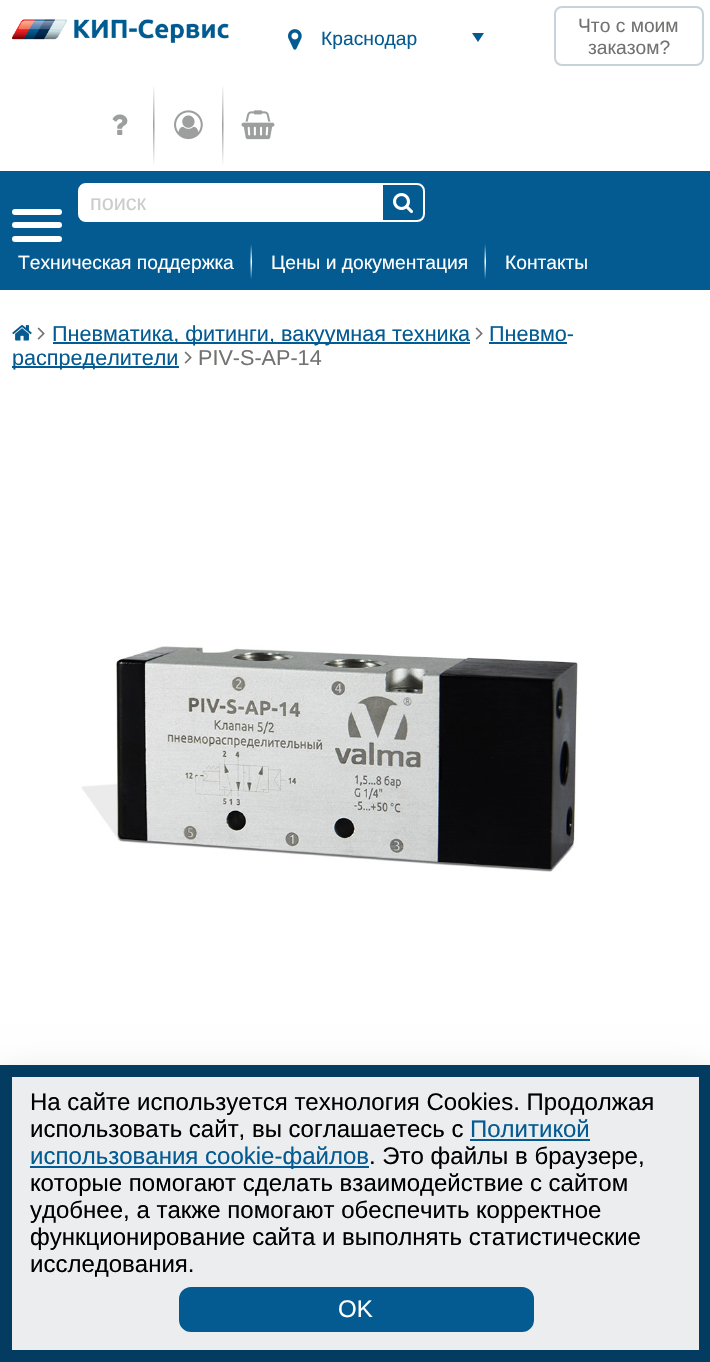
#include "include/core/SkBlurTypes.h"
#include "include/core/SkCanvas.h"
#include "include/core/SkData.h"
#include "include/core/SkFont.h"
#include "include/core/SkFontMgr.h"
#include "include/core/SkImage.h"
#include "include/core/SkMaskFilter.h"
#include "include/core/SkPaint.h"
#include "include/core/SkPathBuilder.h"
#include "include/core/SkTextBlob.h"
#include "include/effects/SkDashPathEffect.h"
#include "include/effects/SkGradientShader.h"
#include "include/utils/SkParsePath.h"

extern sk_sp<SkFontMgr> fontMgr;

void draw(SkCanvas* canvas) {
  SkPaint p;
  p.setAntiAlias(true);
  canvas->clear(SK_ColorWHITE);
  canvas->drawImageRect(SkImages::DeferredFromEncodedData(SkData::MakeFromFileName("images/1.png")), SkRect::MakeLTRB(12, 19, 229, 43), SkSamplingOptions());
  canvas->drawImageRect(SkImages::DeferredFromEncodedData(SkData::MakeFromFileName("images/2.png")), SkRect::MakeLTRB(288, 29, 302, 50), SkSamplingOptions());
  p.setColor(SkColorSetRGB(4, 91, 145));
  canvas->drawPath(SkPathBuilder().moveTo(472, 33).lineTo(484, 33).lineTo(478, 42).close().detach(), p);
  p.setStyle(SkPaint::kStroke_Style);
  p.setStrokeWidth(2);
  p.setColor(SkColorSetRGB(200, 211, 217));
  canvas->drawRoundRect(SkRect::MakeLTRB(555, 7, 703, 65), 7, 7, p);
  canvas->drawImageRect(SkImages::DeferredFromEncodedData(SkData::MakeFromFileName("images/3.png")), SkRect::MakeLTRB(112, 114, 128, 135), SkSamplingOptions());
  canvas->drawImageRect(SkImages::DeferredFromEncodedData(SkData::MakeFromFileName("images/4.png")), SkRect::MakeLTRB(153, 86, 155, 165), SkSamplingOptions());
  canvas->drawImageRect(SkImages::DeferredFromEncodedData(SkData::MakeFromFileName("images/5.png")), SkRect::MakeLTRB(174, 110, 203, 140), SkSamplingOptions());
  canvas->drawImageRect(SkImages::DeferredFromEncodedData(SkData::MakeFromFileName("images/6.png")), SkRect::MakeLTRB(222, 86, 224, 165), SkSamplingOptions());
  canvas->drawImageRect(SkImages::DeferredFromEncodedData(SkData::MakeFromFileName("images/7.png")), SkRect::MakeLTRB(241, 110, 275, 140), SkSamplingOptions());
  p.setStyle(SkPaint::kFill_Style);
  p.setColor(SkColorSetRGB(4, 91, 145));
  canvas->drawRect(SkRect::MakeLTRB(0, 171, 710, 290), p);
  p.setColor(SK_ColorWHITE);
  canvas->drawPath(SkPathBuilder().moveTo(86, 184).lineTo(380, 184).lineTo(380, 221).lineTo(86, 221).cubicTo(82, 221, 79, 218, 79, 214).lineTo(79, 191).cubicTo(79, 187, 82, 184, 86, 184).close().detach(), p);
  p.setStyle(SkPaint::kStroke_Style);
  canvas->drawPath(SkPathBuilder().moveTo(86, 184).lineTo(380, 184).lineTo(380, 221).lineTo(86, 221).cubicTo(82, 221, 79, 218, 79, 214).lineTo(79, 191).cubicTo(79, 187, 82, 184, 86, 184).close().detach(), p);
  canvas->drawPath(SkPathBuilder().moveTo(382, 184).lineTo(417, 184).cubicTo(421, 184, 424, 187, 424, 191).lineTo(424, 214).cubicTo(424, 218, 421, 221, 417, 221).lineTo(382, 221).close().detach(), p);
  canvas->drawImageRect(SkImages::DeferredFromEncodedData(SkData::MakeFromFileName("images/8.png")), SkRect::MakeLTRB(393, 193, 413, 214), SkSamplingOptions());
  canvas->drawImageRect(SkImages::DeferredFromEncodedData(SkData::MakeFromFileName("images/9.png")), SkRect::MakeLTRB(250, 244, 252, 279), SkSamplingOptions());
  canvas->drawImageRect(SkImages::DeferredFromEncodedData(SkData::MakeFromFileName("images/10.png")), SkRect::MakeLTRB(484, 244, 486, 279), SkSamplingOptions());
  p.setStyle(SkPaint::kFill_Style);
  canvas->drawRoundRect(SkRect::MakeLTRB(12, 209, 62, 215), 3, 3, p);
  canvas->drawRoundRect(SkRect::MakeLTRB(12, 222, 62, 228), 3, 3, p);
  canvas->drawRoundRect(SkRect::MakeLTRB(12, 236, 62, 242), 3, 3, p);
  canvas->drawImageRect(SkImages::DeferredFromEncodedData(SkData::MakeFromFileName("images/11.png")), SkRect::MakeLTRB(12, 325, 32, 341), SkSamplingOptions());
  canvas->drawImageRect(SkImages::DeferredFromEncodedData(SkData::MakeFromFileName("images/12.png")), SkRect::MakeLTRB(37, 327, 45, 340), SkSamplingOptions());
  p.setColor(SkColorSetRGB(4, 91, 145));
  canvas->drawRect(SkRect::MakeLTRB(53, 342, 470, 344), p);
  canvas->drawImageRect(SkImages::DeferredFromEncodedData(SkData::MakeFromFileName("images/12.png")), SkRect::MakeLTRB(475, 327, 483, 340), SkSamplingOptions());
  canvas->drawRect(SkRect::MakeLTRB(489, 342, 567, 344), p);
  canvas->drawRect(SkRect::MakeLTRB(12, 366, 179, 368), p);
  canvas->drawImageRect(SkImages::DeferredFromEncodedData(SkData::MakeFromFileName("images/12.png")), SkRect::MakeLTRB(184, 351, 192, 364), SkSamplingOptions());
  canvas->drawImageRect(SkImages::DeferredFromEncodedData(SkData::MakeFromFileName("images/13.png")), SkRect::MakeLTRB(81, 646, 578, 872), SkSamplingOptions());
  p.setColor(SkColorSetARGB(64, 0, 0, 0));
  p.setMaskFilter(SkMaskFilter::MakeBlur(kNormal_SkBlurStyle, 21));
  canvas->drawRect(SkRect::MakeLTRB(0, 1086, 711, 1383), p);
  p.setMaskFilter(nullptr);
  p.setColor(SkColorSetRGB(235, 237, 239));
  canvas->drawRect(SkRect::MakeLTRB(6, 1071, 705, 1356), p);
  p.setStyle(SkPaint::kStroke_Style);
  p.setStrokeWidth(12);
  p.setColor(SkColorSetRGB(3, 60, 96));
  canvas->drawRect(SkRect::MakeLTRB(6, 1071, 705, 1356), p);
  p.setStyle(SkPaint::kFill_Style);
  p.setColor(SkColorSetRGB(4, 91, 145));
  canvas->drawRect(SkRect::MakeLTRB(470, 1139, 590, 1141), p);
  canvas->drawRect(SkRect::MakeLTRB(30, 1166, 369, 1168), p);
  canvas->drawRoundRect(SkRect::MakeLTRB(180.5f, 1288.5f, 532.5f, 1330.5f), 10.5f, 10.5f, p);
  p.setStyle(SkPaint::kStroke_Style);
  p.setStrokeWidth(3);
  canvas->drawRoundRect(SkRect::MakeLTRB(180.5f, 1288.5f, 532.5f, 1330.5f), 10.5f, 10.5f, p);
  SkFont font1(fontMgr->matchFamilyStyle("Liberation Sans", SkFontStyle::Normal()), 19.25f);
  font1.setSubpixel(true);
  p.setStyle(SkPaint::kFill_Style);
  canvas->drawString("Краснодар", 321, 45, font1, p);
  p.setColor(SkColorSetRGB(114, 114, 113));
  canvas->drawString("Что с моим", 578, 32, font1, p);
  canvas->drawString("заказом?", 588, 54, font1, p);
  SkFont font2(fontMgr->matchFamilyStyle("Liberation Sans", SkFontStyle::Normal()), 21.6f);
  font2.setSubpixel(true);
  p.setColor(SkColorSetRGB(204, 204, 204));
  canvas->drawString("поиск", 90, 210, font2, p);
  p.setColor(SK_ColorWHITE);
  canvas->drawString("Техническая поддержка", 18, 269, font1, p);
  canvas->drawString("Цены и документация", 271, 269, font1, p);
  canvas->drawString("Контакты", 505, 269, font1, p);
  p.setColor(SkColorSetRGB(4, 91, 145));
  canvas->drawString("Пневматика, фитинги, вакуумная техника", 52, 341, font2, p);
  canvas->drawString("Пневмо-", 489, 341, font2, p);
  canvas->drawString("распределители", 12, 365, font2, p);
  p.setColor(SkColorSetRGB(114, 114, 113));
  canvas->drawString("PIV-S-AP-14", 198, 365, font2, p);
  SkFont font3(fontMgr->matchFamilyStyle("Liberation Sans", SkFontStyle::Normal()), 24);
  font3.setSubpixel(true);
  p.setColor(SK_ColorBLACK);
  canvas->drawString("На сайте используется технология Cookies. Продолжая", 30, 1110, font3, p);
  canvas->drawString("использовать сайт, вы соглашаетесь с", 30, 1137, font3, p);
  p.setColor(SkColorSetRGB(4, 91, 145));
  canvas->drawString("Политикой", 470, 1137, font3, p);
  canvas->drawString("использования cookie-файлов", 30, 1164, font3, p);
  p.setColor(SK_ColorBLACK);
  canvas->drawString(". Это файлы в браузере,", 369, 1164, font3, p);
  canvas->drawString("которые помогают сделать взаимодействие с сайтом", 30, 1191, font3, p);
  canvas->drawString("удобнее, а также помогают обеспечить корректное", 30, 1218, font3, p);
  canvas->drawString("функционирование сайта и выполнять статистические", 30, 1245, font3, p);
  canvas->drawString("исследования.", 30, 1272, font3, p);
  p.setColor(SK_ColorWHITE);
  canvas->drawString("OK", 338, 1317, font3, p);
}
